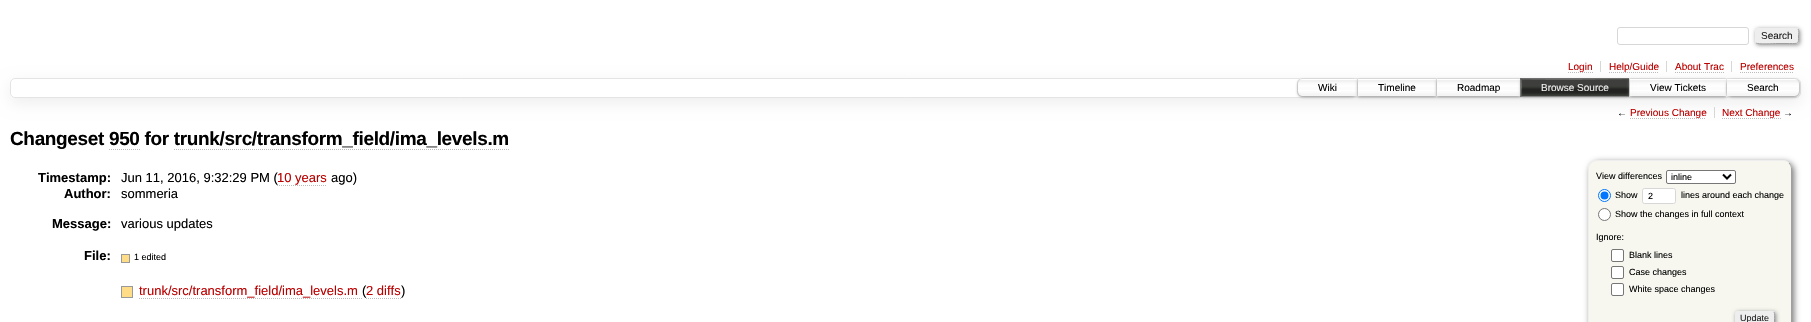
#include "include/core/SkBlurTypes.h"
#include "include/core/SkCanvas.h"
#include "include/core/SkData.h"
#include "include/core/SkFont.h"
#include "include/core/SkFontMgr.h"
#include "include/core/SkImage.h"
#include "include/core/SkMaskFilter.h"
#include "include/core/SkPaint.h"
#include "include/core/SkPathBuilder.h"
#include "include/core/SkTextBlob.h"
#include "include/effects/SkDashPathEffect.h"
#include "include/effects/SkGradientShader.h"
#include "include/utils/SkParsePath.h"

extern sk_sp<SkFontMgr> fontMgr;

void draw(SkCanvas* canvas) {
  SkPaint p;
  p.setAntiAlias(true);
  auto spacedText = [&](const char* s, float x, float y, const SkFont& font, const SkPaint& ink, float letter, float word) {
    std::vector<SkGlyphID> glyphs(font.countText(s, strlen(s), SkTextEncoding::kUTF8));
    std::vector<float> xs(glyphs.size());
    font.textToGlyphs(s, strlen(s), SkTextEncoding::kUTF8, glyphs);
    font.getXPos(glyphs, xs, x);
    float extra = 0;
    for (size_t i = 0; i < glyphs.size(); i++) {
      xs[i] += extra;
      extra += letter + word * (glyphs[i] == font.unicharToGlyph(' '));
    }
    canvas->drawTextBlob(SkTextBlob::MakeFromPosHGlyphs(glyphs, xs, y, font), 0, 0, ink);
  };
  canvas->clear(SK_ColorWHITE);
  p.setStyle(SkPaint::kStroke_Style);
  p.setStrokeWidth(1);
  p.setColor(SkColorSetRGB(215, 215, 215));
  canvas->drawRoundRect(SkRect::MakeLTRB(1617.5f, 27.5f, 1748.5f, 44.5f), 2.5f, 2.5f, p);
  p.setStyle(SkPaint::kFill_Style);
  p.setColor(SkColorSetRGB(136, 136, 136));
  p.setMaskFilter(SkMaskFilter::MakeBlur(kNormal_SkBlurStyle, 2));
  canvas->drawRoundRect(SkRect::MakeLTRB(1756, 29, 1800, 45), 3, 3, p);
  p.setMaskFilter(nullptr);
  p.setColor(SkColorSetRGB(238, 238, 238));
  canvas->drawRoundRect(SkRect::MakeLTRB(1755, 28, 1799, 44), 3, 3, p);
  p.setStyle(SkPaint::kStroke_Style);
  p.setColor(SkColorSetRGB(159, 159, 159));
  canvas->drawPath(SkPathBuilder().moveTo(1798, 29).cubicTo(1799.5f, 31, 1798.5f, 34, 1798.5f, 36).cubicTo(1798.5f, 44.5f, 1799, 43.5f, 1789.5f, 43.5f).lineTo(1777, 43.5f).cubicTo(1774, 43.5f, 1758, 44.5f, 1756, 43).detach(), p);
  p.setColor(SkColorSetRGB(238, 238, 238));
  canvas->drawPath(SkPathBuilder().moveTo(1756, 43).cubicTo(1754.5f, 41, 1755.5f, 38, 1755.5f, 36).cubicTo(1755.5f, 27.5f, 1755, 28.5f, 1764.5f, 28.5f).lineTo(1777, 28.5f).cubicTo(1780, 28.5f, 1796, 27.5f, 1798, 29).detach(), p);
  canvas->save();
  canvas->clipPath(SkPathBuilder(SkPathFillType::kEvenOdd).moveTo(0, 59).lineTo(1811, 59).lineTo(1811, 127).lineTo(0, 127).close().moveTo(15, 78).lineTo(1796, 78).cubicTo(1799, 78, 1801, 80, 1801, 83).lineTo(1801, 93).cubicTo(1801, 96, 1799, 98, 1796, 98).lineTo(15, 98).cubicTo(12, 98, 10, 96, 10, 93).lineTo(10, 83).cubicTo(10, 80, 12, 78, 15, 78).close().detach(), true);
  p.setStyle(SkPaint::kFill_Style);
  p.setMaskFilter(SkMaskFilter::MakeBlur(kNormal_SkBlurStyle, 7.5f));
  canvas->drawRoundRect(SkRect::MakeLTRB(10, 83, 1801, 103), 5, 5, p);
  p.setMaskFilter(nullptr);
  canvas->restore();
  p.setColor(SkColorSetRGB(215, 215, 215));
  canvas->drawRect(SkRect::MakeLTRB(1600, 61, 1601, 72), p);
  p.setStyle(SkPaint::kStroke_Style);
  p.setColor(SkColorSetRGB(187, 187, 187));
  p.setPathEffect(SkDashPathEffect::Make({{1, 1}}, 0));
  canvas->drawPath(SkPathBuilder().moveTo(1568, 72.5f).lineTo(1593, 72.5f).detach(), p);
  p.setPathEffect(nullptr);
  p.setStyle(SkPaint::kFill_Style);
  p.setColor(SkColorSetRGB(215, 215, 215));
  canvas->drawRect(SkRect::MakeLTRB(1666, 61, 1667, 72), p);
  p.setStyle(SkPaint::kStroke_Style);
  p.setColor(SkColorSetRGB(187, 187, 187));
  p.setPathEffect(SkDashPathEffect::Make({{1, 1}}, 0));
  canvas->drawPath(SkPathBuilder().moveTo(1609, 72.5f).lineTo(1659, 72.5f).detach(), p);
  p.setPathEffect(nullptr);
  p.setStyle(SkPaint::kFill_Style);
  p.setColor(SkColorSetRGB(215, 215, 215));
  canvas->drawRect(SkRect::MakeLTRB(1731, 61, 1732, 72), p);
  p.setStyle(SkPaint::kStroke_Style);
  p.setColor(SkColorSetRGB(187, 187, 187));
  p.setPathEffect(SkDashPathEffect::Make({{1, 1}}, 0));
  canvas->drawPath(SkPathBuilder().moveTo(1675, 72.5f).lineTo(1724, 72.5f).detach(), p);
  p.setPathEffect(nullptr);
  p.setPathEffect(SkDashPathEffect::Make({{1, 1}}, 0));
  canvas->drawPath(SkPathBuilder().moveTo(1740, 72.5f).lineTo(1794, 72.5f).detach(), p);
  p.setPathEffect(nullptr);
  p.setColor(SkColorSetRGB(228, 228, 228));
  canvas->drawRoundRect(SkRect::MakeLTRB(10.5f, 78.5f, 1800.5f, 97.5f), 4.5f, 4.5f, p);
  p.setStyle(SkPaint::kFill_Style);
  p.setColor(SK_ColorWHITE);
  canvas->drawPath(SkPathBuilder().moveTo(1302, 78).lineTo(1358, 78).lineTo(1358, 97).lineTo(1302, 97).cubicTo(1299, 97, 1297, 95, 1297, 92).lineTo(1297, 83).cubicTo(1297, 80, 1299, 78, 1302, 78).close().detach(), p);
  canvas->drawImageRect(SkImages::DeferredFromEncodedData(SkData::MakeFromFileName("images/1.png")), SkRect::MakeLTRB(1297, 80, 1357, 97), SkSamplingOptions());
  p.setStyle(SkPaint::kStroke_Style);
  p.setColor(SkColorSetRGB(228, 228, 228));
  canvas->drawPath(SkPathBuilder().moveTo(1302, 78.5f).lineTo(1357.5f, 78.5f).lineTo(1357.5f, 96.5f).lineTo(1302, 96.5f).cubicTo(1299.5f, 96.5f, 1297.5f, 94.5f, 1297.5f, 92).lineTo(1297.5f, 83).cubicTo(1297.5f, 80.5f, 1299.5f, 78.5f, 1302, 78.5f).close().detach(), p);
  canvas->save();
  canvas->clipPath(SkPathBuilder(SkPathFillType::kEvenOdd).moveTo(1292, 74).lineTo(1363, 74).lineTo(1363, 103).lineTo(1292, 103).close().moveTo(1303, 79).lineTo(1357, 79).lineTo(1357, 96).lineTo(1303, 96).cubicTo(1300, 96, 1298, 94, 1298, 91).lineTo(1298, 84).cubicTo(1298, 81, 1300, 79, 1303, 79).close().detach(), true);
  p.setStyle(SkPaint::kFill_Style);
  p.setColor(SkColorSetRGB(153, 153, 153));
  p.setMaskFilter(SkMaskFilter::MakeBlur(kNormal_SkBlurStyle, 1.5f));
  canvas->drawRoundRect(SkRect::MakeLTRB(1298, 80, 1357, 97), 5, 5, p);
  p.setMaskFilter(nullptr);
  canvas->restore();
  p.setColor(SK_ColorWHITE);
  canvas->drawRect(SkRect::MakeLTRB(1358, 81, 1360, 96), p);
  canvas->drawImageRect(SkImages::DeferredFromEncodedData(SkData::MakeFromFileName("images/2.png")), SkRect::MakeLTRB(1358, 80, 1436, 96), SkSamplingOptions());
  p.setStyle(SkPaint::kStroke_Style);
  p.setColor(SkColorSetRGB(228, 228, 228));
  canvas->drawRect(SkRect::MakeLTRB(1357.5f, 78.5f, 1436.5f, 96.5f), p);
  canvas->save();
  canvas->clipPath(SkPathBuilder(SkPathFillType::kEvenOdd).moveTo(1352, 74).lineTo(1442, 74).lineTo(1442, 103).lineTo(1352, 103).close().moveTo(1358, 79).lineTo(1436, 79).lineTo(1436, 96).lineTo(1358, 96).close().detach(), true);
  p.setStyle(SkPaint::kFill_Style);
  p.setColor(SkColorSetRGB(153, 153, 153));
  p.setMaskFilter(SkMaskFilter::MakeBlur(kNormal_SkBlurStyle, 1.5f));
  canvas->drawRect(SkRect::MakeLTRB(1358, 80, 1436, 97), p);
  p.setMaskFilter(nullptr);
  canvas->restore();
  p.setColor(SK_ColorWHITE);
  canvas->drawRect(SkRect::MakeLTRB(1437, 79, 1439, 96), p);
  canvas->drawImageRect(SkImages::DeferredFromEncodedData(SkData::MakeFromFileName("images/3.png")), SkRect::MakeLTRB(1437, 80, 1520, 96), SkSamplingOptions());
  p.setStyle(SkPaint::kStroke_Style);
  p.setColor(SkColorSetRGB(228, 228, 228));
  canvas->drawRect(SkRect::MakeLTRB(1436.5f, 78.5f, 1520.5f, 96.5f), p);
  canvas->save();
  canvas->clipPath(SkPathBuilder(SkPathFillType::kEvenOdd).moveTo(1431, 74).lineTo(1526, 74).lineTo(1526, 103).lineTo(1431, 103).close().moveTo(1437, 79).lineTo(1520, 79).lineTo(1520, 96).lineTo(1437, 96).close().detach(), true);
  p.setStyle(SkPaint::kFill_Style);
  p.setColor(SkColorSetRGB(153, 153, 153));
  p.setMaskFilter(SkMaskFilter::MakeBlur(kNormal_SkBlurStyle, 1.5f));
  canvas->drawRect(SkRect::MakeLTRB(1437, 80, 1520, 97), p);
  p.setMaskFilter(nullptr);
  canvas->restore();
  p.setStyle(SkPaint::kStroke_Style);
  p.setColor(SkColorSetRGB(102, 102, 102));
  canvas->drawRect(SkRect::MakeLTRB(1520.5f, 78.5f, 1629.5f, 96.5f), p);
  p.setStyle(SkPaint::kFill_Style);
  p.setColor(SkColorSetRGB(153, 153, 153));
  p.setMaskFilter(SkMaskFilter::MakeBlur(kNormal_SkBlurStyle, 1.5f));
  canvas->drawRect(SkRect::MakeLTRB(1521, 80, 1629, 97), p);
  p.setMaskFilter(nullptr);
  p.setColor(SK_ColorBLACK);
  canvas->drawRect(SkRect::MakeLTRB(1521, 79, 1629, 96), p);
  canvas->drawImageRect(SkImages::DeferredFromEncodedData(SkData::MakeFromFileName("images/4.png")), SkRect::MakeLTRB(1521, 79, 1629, 96), SkSamplingOptions());
  p.setColor(SK_ColorWHITE);
  canvas->drawRect(SkRect::MakeLTRB(1630, 79, 1632, 96), p);
  canvas->drawImageRect(SkImages::DeferredFromEncodedData(SkData::MakeFromFileName("images/5.png")), SkRect::MakeLTRB(1630, 80, 1726, 96), SkSamplingOptions());
  p.setStyle(SkPaint::kStroke_Style);
  p.setColor(SkColorSetRGB(228, 228, 228));
  canvas->drawRect(SkRect::MakeLTRB(1629.5f, 78.5f, 1726.5f, 96.5f), p);
  canvas->save();
  canvas->clipPath(SkPathBuilder(SkPathFillType::kEvenOdd).moveTo(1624, 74).lineTo(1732, 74).lineTo(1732, 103).lineTo(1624, 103).close().moveTo(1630, 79).lineTo(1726, 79).lineTo(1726, 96).lineTo(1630, 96).close().detach(), true);
  p.setStyle(SkPaint::kFill_Style);
  p.setColor(SkColorSetRGB(153, 153, 153));
  p.setMaskFilter(SkMaskFilter::MakeBlur(kNormal_SkBlurStyle, 1.5f));
  canvas->drawRect(SkRect::MakeLTRB(1630, 80, 1726, 97), p);
  p.setMaskFilter(nullptr);
  canvas->restore();
  p.setColor(SK_ColorWHITE);
  canvas->drawPath(SkPathBuilder().moveTo(1726, 78).lineTo(1795, 78).cubicTo(1798, 78, 1800, 80, 1800, 83).lineTo(1800, 92).cubicTo(1800, 95, 1798, 97, 1795, 97).lineTo(1726, 97).close().detach(), p);
  canvas->drawImageRect(SkImages::DeferredFromEncodedData(SkData::MakeFromFileName("images/6.png")), SkRect::MakeLTRB(1727, 80, 1800, 97), SkSamplingOptions());
  p.setStyle(SkPaint::kStroke_Style);
  p.setColor(SkColorSetRGB(228, 228, 228));
  canvas->drawPath(SkPathBuilder().moveTo(1726.5f, 78.5f).lineTo(1795, 78.5f).cubicTo(1797.5f, 78.5f, 1799.5f, 80.5f, 1799.5f, 83).lineTo(1799.5f, 92).cubicTo(1799.5f, 94.5f, 1797.5f, 96.5f, 1795, 96.5f).lineTo(1726.5f, 96.5f).close().detach(), p);
  canvas->save();
  canvas->clipPath(SkPathBuilder(SkPathFillType::kEvenOdd).moveTo(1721, 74).lineTo(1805, 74).lineTo(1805, 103).lineTo(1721, 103).close().moveTo(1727, 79).lineTo(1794, 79).cubicTo(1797, 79, 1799, 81, 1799, 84).lineTo(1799, 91).cubicTo(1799, 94, 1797, 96, 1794, 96).lineTo(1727, 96).close().detach(), true);
  p.setStyle(SkPaint::kFill_Style);
  p.setColor(SkColorSetRGB(153, 153, 153));
  p.setMaskFilter(SkMaskFilter::MakeBlur(kNormal_SkBlurStyle, 1.5f));
  canvas->drawRoundRect(SkRect::MakeLTRB(1727, 80, 1799, 97), 5, 5, p);
  p.setMaskFilter(nullptr);
  canvas->restore();
  p.setColor(SkColorSetRGB(215, 215, 215));
  canvas->drawRect(SkRect::MakeLTRB(1714, 107, 1715, 118), p);
  p.setStyle(SkPaint::kStroke_Style);
  p.setColor(SkColorSetRGB(187, 187, 187));
  p.setPathEffect(SkDashPathEffect::Make({{1, 1}}, 0));
  canvas->drawPath(SkPathBuilder().moveTo(1630, 118.5f).lineTo(1706, 118.5f).detach(), p);
  p.setPathEffect(nullptr);
  p.setPathEffect(SkDashPathEffect::Make({{1, 1}}, 0));
  canvas->drawPath(SkPathBuilder().moveTo(1722, 118.5f).lineTo(1781, 118.5f).detach(), p);
  p.setPathEffect(nullptr);
  p.setPathEffect(SkDashPathEffect::Make({{1, 1}}, 0));
  canvas->drawPath(SkPathBuilder().moveTo(109, 149.5f).lineTo(140, 149.5f).detach(), p);
  p.setPathEffect(nullptr);
  p.setPathEffect(SkDashPathEffect::Make({{1, 1}}, 0));
  canvas->drawPath(SkPathBuilder().moveTo(174, 149.5f).lineTo(509, 149.5f).detach(), p);
  p.setPathEffect(nullptr);
  p.setPathEffect(SkDashPathEffect::Make({{1, 1}}, 0));
  canvas->drawPath(SkPathBuilder().moveTo(277, 185.5f).lineTo(327, 185.5f).detach(), p);
  p.setPathEffect(nullptr);
  p.setStyle(SkPaint::kFill_Style);
  p.setColor(SkColorSetRGB(255, 221, 136));
  canvas->drawRect(SkRect::MakeLTRB(121.5f, 254.5f, 129.5f, 262.5f), p);
  p.setStyle(SkPaint::kStroke_Style);
  p.setColor(SkColorSetRGB(153, 153, 153));
  canvas->drawRect(SkRect::MakeLTRB(121.5f, 254.5f, 129.5f, 262.5f), p);
  p.setStyle(SkPaint::kFill_Style);
  p.setColor(SkColorSetRGB(255, 221, 136));
  canvas->drawRect(SkRect::MakeLTRB(121.5f, 286.5f, 132.5f, 297.5f), p);
  p.setStyle(SkPaint::kStroke_Style);
  p.setColor(SkColorSetRGB(153, 153, 153));
  canvas->drawRect(SkRect::MakeLTRB(121.5f, 286.5f, 132.5f, 297.5f), p);
  p.setColor(SkColorSetRGB(187, 187, 187));
  p.setPathEffect(SkDashPathEffect::Make({{1, 1}}, 0));
  canvas->drawPath(SkPathBuilder().moveTo(139, 298.5f).lineTo(362, 298.5f).detach(), p);
  p.setPathEffect(nullptr);
  p.setPathEffect(SkDashPathEffect::Make({{1, 1}}, 0));
  canvas->drawPath(SkPathBuilder().moveTo(366, 298.5f).lineTo(401, 298.5f).detach(), p);
  p.setPathEffect(nullptr);
  p.setStyle(SkPaint::kFill_Style);
  p.setColor(SkColorSetRGB(119, 119, 119));
  p.setMaskFilter(SkMaskFilter::MakeBlur(kNormal_SkBlurStyle, 3));
  canvas->drawRoundRect(SkRect::MakeLTRB(1590, 162, 1794, 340), 9, 9, p);
  p.setMaskFilter(nullptr);
  p.setColor(SkColorSetRGB(247, 247, 240));
  canvas->drawRoundRect(SkRect::MakeLTRB(1588, 160, 1792, 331), 9, 9, p);
  p.setStyle(SkPaint::kStroke_Style);
  p.setColor(SkColorSetRGB(159, 159, 159));
  canvas->drawPath(SkPathBuilder().moveTo(1789, 163).cubicTo(1790.5f, 164.5f, 1791.5f, 166.5f, 1791.5f, 169).lineTo(1791.5f, 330).cubicTo(1791.5f, 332.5f, 1790.5f, 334.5f, 1789, 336).cubicTo(1787.5f, 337.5f, 1785.5f, 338.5f, 1783, 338.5f).lineTo(1597, 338.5f).cubicTo(1594.5f, 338.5f, 1592.5f, 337.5f, 1591, 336).detach(), p);
  p.setColor(SkColorSetRGB(238, 238, 238));
  canvas->drawPath(SkPathBuilder().moveTo(1591, 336).cubicTo(1589.5f, 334.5f, 1588.5f, 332.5f, 1588.5f, 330).lineTo(1588.5f, 169).cubicTo(1588.5f, 166.5f, 1589.5f, 164.5f, 1591, 163).cubicTo(1592.5f, 161.5f, 1594.5f, 160.5f, 1597, 160.5f).lineTo(1783, 160.5f).cubicTo(1785.5f, 160.5f, 1787.5f, 161.5f, 1789, 163).detach(), p);
  p.setStyle(SkPaint::kFill_Style);
  p.setColor(SK_ColorWHITE);
  canvas->drawRoundRect(SkRect::MakeLTRB(1666.5f, 170.5f, 1735.5f, 183.5f), 1.5f, 1.5f, p);
  p.setStyle(SkPaint::kStroke_Style);
  p.setColor(SkColorSetRGB(118, 118, 118));
  canvas->drawRoundRect(SkRect::MakeLTRB(1666.5f, 170.5f, 1735.5f, 183.5f), 1.5f, 1.5f, p);
  p.setStrokeWidth(2);
  p.setColor(SK_ColorBLACK);
  canvas->drawPath(SkPathBuilder().moveTo(1723, 174.5f).lineTo(1727, 178.5f).lineTo(1731, 174.5f).detach(), p);
  p.setStyle(SkPaint::kFill_Style);
  p.setColor(SK_ColorWHITE);
  canvas->drawCircle(1604.5f, 195.5f, 6, p);
  p.setStyle(SkPaint::kStroke_Style);
  p.setStrokeWidth(1);
  p.setColor(SkColorSetRGB(0, 117, 255));
  canvas->drawCircle(1604.5f, 195.5f, 6, p);
  p.setStyle(SkPaint::kFill_Style);
  canvas->drawCircle(1604.5f, 195.5f, 4, p);
  p.setColor(SK_ColorWHITE);
  canvas->drawRoundRect(SkRect::MakeLTRB(1642.5f, 188.5f, 1675.5f, 203.5f), 2, 2, p);
  p.setStyle(SkPaint::kStroke_Style);
  p.setColor(SkColorSetRGB(215, 215, 215));
  canvas->drawRoundRect(SkRect::MakeLTRB(1642.5f, 188.5f, 1675.5f, 203.5f), 2, 2, p);
  p.setStyle(SkPaint::kFill_Style);
  p.setColor(SK_ColorWHITE);
  canvas->drawCircle(1604.5f, 214.5f, 6, p);
  p.setStyle(SkPaint::kStroke_Style);
  p.setColor(SkColorSetRGB(118, 118, 118));
  canvas->drawCircle(1604.5f, 214.5f, 6, p);
  p.setStyle(SkPaint::kFill_Style);
  p.setColor(SK_ColorWHITE);
  canvas->drawRoundRect(SkRect::MakeLTRB(1611.5f, 249.5f, 1623.5f, 261.5f), 1.5f, 1.5f, p);
  p.setStyle(SkPaint::kStroke_Style);
  p.setColor(SkColorSetRGB(118, 118, 118));
  canvas->drawRoundRect(SkRect::MakeLTRB(1611.5f, 249.5f, 1623.5f, 261.5f), 1.5f, 1.5f, p);
  p.setStyle(SkPaint::kFill_Style);
  p.setColor(SK_ColorWHITE);
  canvas->drawRoundRect(SkRect::MakeLTRB(1611.5f, 266.5f, 1623.5f, 278.5f), 1.5f, 1.5f, p);
  p.setStyle(SkPaint::kStroke_Style);
  p.setColor(SkColorSetRGB(118, 118, 118));
  canvas->drawRoundRect(SkRect::MakeLTRB(1611.5f, 266.5f, 1623.5f, 278.5f), 1.5f, 1.5f, p);
  p.setStyle(SkPaint::kFill_Style);
  p.setColor(SK_ColorWHITE);
  canvas->drawRoundRect(SkRect::MakeLTRB(1611.5f, 283.5f, 1623.5f, 295.5f), 1.5f, 1.5f, p);
  p.setStyle(SkPaint::kStroke_Style);
  p.setColor(SkColorSetRGB(118, 118, 118));
  canvas->drawRoundRect(SkRect::MakeLTRB(1611.5f, 283.5f, 1623.5f, 295.5f), 1.5f, 1.5f, p);
  p.setStyle(SkPaint::kFill_Style);
  p.setColor(SkColorSetRGB(136, 136, 136));
  p.setMaskFilter(SkMaskFilter::MakeBlur(kNormal_SkBlurStyle, 2));
  canvas->drawRoundRect(SkRect::MakeLTRB(1736, 312, 1776, 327), 2.5f, 2.5f, p);
  p.setMaskFilter(nullptr);
  p.setColor(SkColorSetRGB(238, 238, 238));
  canvas->drawRoundRect(SkRect::MakeLTRB(1735, 311, 1775, 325), 2.5f, 2.5f, p);
  p.setStyle(SkPaint::kStroke_Style);
  p.setColor(SkColorSetRGB(159, 159, 159));
  canvas->drawPath(SkPathBuilder().moveTo(1774, 312).cubicTo(1775, 313.5f, 1774.5f, 317, 1774.5f, 318.5f).cubicTo(1774.5f, 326.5f, 1775, 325.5f, 1766.5f, 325.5f).lineTo(1743.5f, 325.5f).cubicTo(1743, 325.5f, 1737.5f, 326.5f, 1736, 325).detach(), p);
  p.setColor(SkColorSetRGB(238, 238, 238));
  canvas->drawPath(SkPathBuilder().moveTo(1736, 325).cubicTo(1735, 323.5f, 1735.5f, 320, 1735.5f, 318.5f).cubicTo(1735.5f, 310.5f, 1735, 311.5f, 1743.5f, 311.5f).lineTo(1766.5f, 311.5f).cubicTo(1767, 311.5f, 1772.5f, 310.5f, 1774, 312).detach(), p);
  SkFont font1(fontMgr->matchFamilyStyle("Liberation Sans", SkFontStyle::Normal()), 10);
  font1.setSubpixel(true);
  p.setStyle(SkPaint::kFill_Style);
  p.setColor(SkColorSetRGB(34, 34, 34));
  canvas->drawString("Search", 1761, 39, font1, p);
  p.setColor(SkColorSetRGB(187, 0, 0));
  canvas->drawString("Login", 1568, 70, font1, p);
  canvas->drawString("Help/Guide", 1609, 70, font1, p);
  canvas->drawString("About Trac", 1675, 70, font1, p);
  canvas->drawString("Preferences", 1740, 70, font1, p);
  p.setColor(SK_ColorBLACK);
  canvas->drawString("Wiki", 1318, 91, font1, p);
  canvas->drawString("Timeline", 1378, 91, font1, p);
  canvas->drawString("Roadmap", 1457, 91, font1, p);
  p.setColor(SkColorSetRGB(238, 238, 238));
  canvas->drawString("Browse Source", 1541, 91, font1, p);
  p.setColor(SK_ColorBLACK);
  canvas->drawString("View Tickets", 1650, 91, font1, p);
  canvas->drawString("Search", 1747, 91, font1, p);
  canvas->drawString("←", 1617, 116, font1, p);
  p.setColor(SkColorSetRGB(187, 0, 0));
  canvas->drawString("Previous Change", 1630, 116, font1, p);
  canvas->drawString("Next Change", 1722, 116, font1, p);
  p.setColor(SK_ColorBLACK);
  canvas->drawString("→", 1783, 116, font1, p);
  SkFont font2(fontMgr->matchFamilyStyle("Liberation Sans", SkFontStyle::Bold()), 19);
  font2.setSubpixel(true);
  spacedText("Changeset 950 for trunk/src/transform_field/ima_levels.m", 10, 145, font2, p, -0.35f, 0);
  SkFont font3(fontMgr->matchFamilyStyle("Liberation Sans", SkFontStyle::Bold()), 13);
  font3.setSubpixel(true);
  canvas->drawString("Timestamp:", 38, 182, font3, p);
  SkFont font4(fontMgr->matchFamilyStyle("Liberation Sans", SkFontStyle::Normal()), 13);
  font4.setSubpixel(true);
  canvas->drawString("Jun 11, 2016, 9:32:29 PM (", 121, 182, font4, p);
  p.setColor(SkColorSetRGB(187, 0, 0));
  canvas->drawString("10 years", 277, 182, font4, p);
  p.setColor(SK_ColorBLACK);
  canvas->drawString("ago)", 331, 182, font4, p);
  canvas->drawString("Author:", 64, 198, font3, p);
  canvas->drawString("sommeria", 121, 198, font4, p);
  canvas->drawString("Message:", 52, 228, font3, p);
  canvas->drawString("various updates", 121, 228, font4, p);
  canvas->drawString("File:", 84, 260, font3, p);
  SkFont font5(fontMgr->matchFamilyStyle("Liberation Sans", SkFontStyle::Normal()), 9);
  font5.setSubpixel(true);
  canvas->drawString("1 edited", 134, 260, font5, p);
  p.setColor(SkColorSetRGB(187, 0, 0));
  canvas->drawString("trunk/src/transform_field/ima_levels.m", 139, 295, font4, p);
  p.setColor(SK_ColorBLACK);
  canvas->drawString("(", 362, 295, font4, p);
  p.setColor(SkColorSetRGB(187, 0, 0));
  canvas->drawString("2 diffs", 366, 295, font4, p);
  p.setColor(SK_ColorBLACK);
  canvas->drawString(")", 401, 295, font4, p);
  canvas->drawString("View differences", 1596, 179, font5, p);
  canvas->drawString("inline", 1671, 180, font5, p);
  canvas->drawString("Show", 1615, 198, font5, p);
  canvas->drawString("2", 1648, 199, font5, p);
  canvas->drawString("lines around each change", 1681, 198, font5, p);
  canvas->drawString("Show the changes in full context", 1615, 217, font5, p);
  canvas->drawString("Ignore:", 1596, 240, font5, p);
  canvas->drawString("Blank lines", 1629, 258, font5, p);
  canvas->drawString("Case changes", 1629, 275, font5, p);
  canvas->drawString("White space changes", 1629, 292, font5, p);
  p.setColor(SkColorSetRGB(34, 34, 34));
  canvas->drawString("Update", 1740, 321, font5, p);
}
